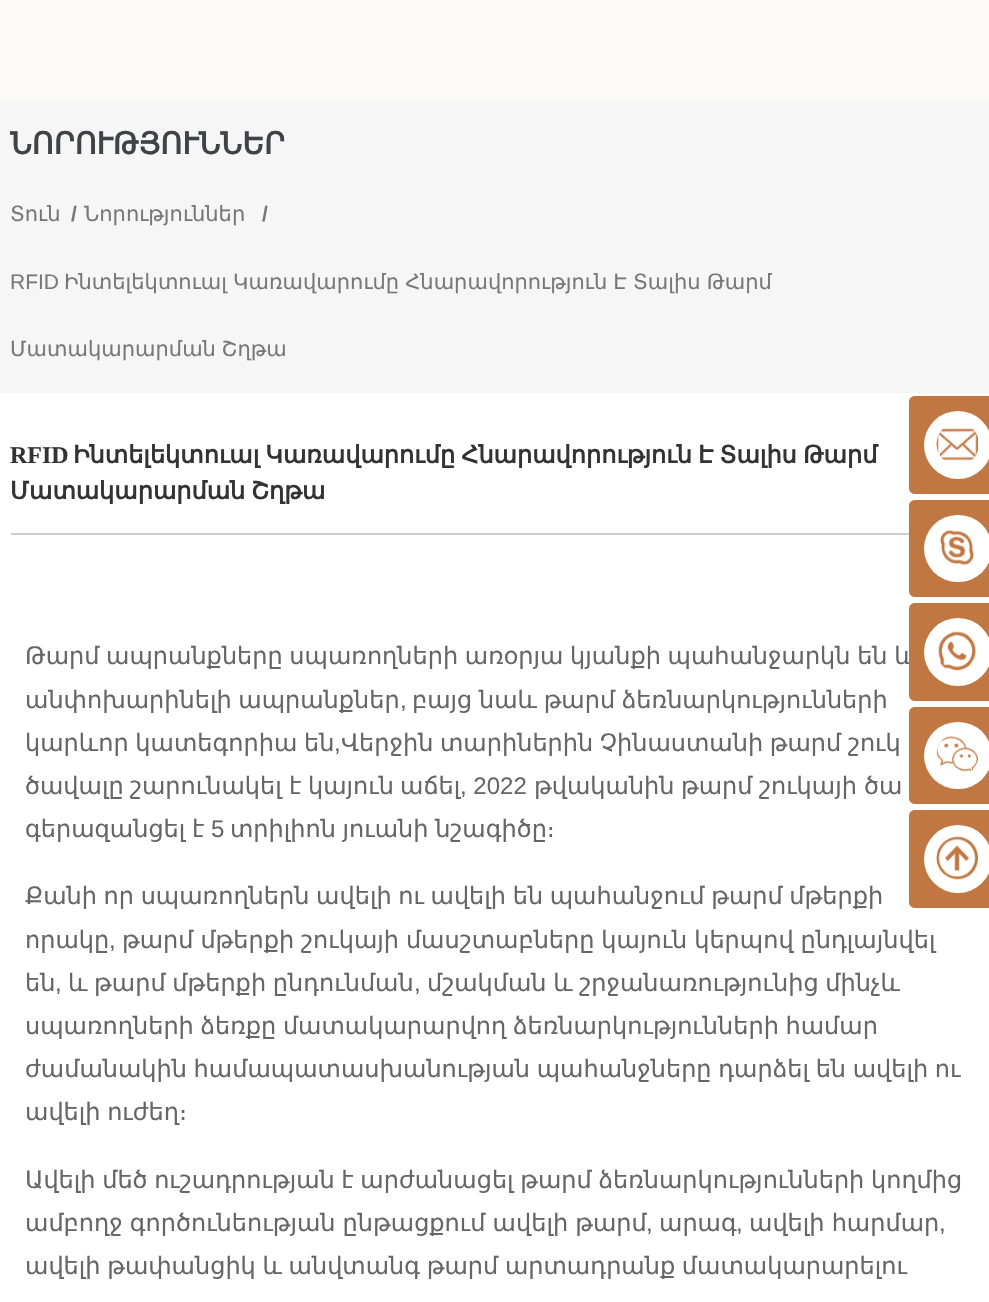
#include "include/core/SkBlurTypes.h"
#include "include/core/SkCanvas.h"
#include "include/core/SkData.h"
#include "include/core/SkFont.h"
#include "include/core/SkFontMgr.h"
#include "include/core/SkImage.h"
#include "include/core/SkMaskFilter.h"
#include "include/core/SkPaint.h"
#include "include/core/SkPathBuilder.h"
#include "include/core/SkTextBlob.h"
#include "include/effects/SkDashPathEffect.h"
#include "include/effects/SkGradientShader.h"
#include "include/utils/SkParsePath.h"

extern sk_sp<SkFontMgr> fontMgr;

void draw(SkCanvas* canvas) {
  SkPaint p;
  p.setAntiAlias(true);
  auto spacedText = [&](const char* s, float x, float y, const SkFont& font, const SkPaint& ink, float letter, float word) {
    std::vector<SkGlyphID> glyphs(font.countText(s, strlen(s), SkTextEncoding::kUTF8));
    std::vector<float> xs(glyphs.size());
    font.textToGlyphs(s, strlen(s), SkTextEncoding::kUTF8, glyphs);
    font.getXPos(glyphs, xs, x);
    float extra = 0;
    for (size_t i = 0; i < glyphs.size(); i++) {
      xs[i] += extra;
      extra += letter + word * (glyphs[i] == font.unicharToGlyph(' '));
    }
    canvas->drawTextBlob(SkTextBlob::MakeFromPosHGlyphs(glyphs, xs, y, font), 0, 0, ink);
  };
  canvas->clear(SK_ColorWHITE);
  p.setColor(SkColorSetRGB(252, 250, 246));
  canvas->drawRect(SkRect::MakeLTRB(0, 0, 989, 101), p);
  p.setColor(SkColorSetRGB(246, 246, 246));
  canvas->drawRect(SkRect::MakeLTRB(0, 101, 989, 393), p);
  p.setColor(SkColorSetRGB(193, 119, 66));
  canvas->drawPath(SkPathBuilder().moveTo(915, 396).lineTo(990, 396).lineTo(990, 494).lineTo(915, 494).cubicTo(911.5f, 494, 909, 491.5f, 909, 488).lineTo(909, 402).cubicTo(909, 398.5f, 911.5f, 396, 915, 396).close().detach(), p);
  p.setColor(SK_ColorWHITE);
  canvas->drawCircle(958, 445, 34, p);
  canvas->drawImageRect(SkImages::DeferredFromEncodedData(SkData::MakeFromFileName("images/1.png")), SkRect::MakeLTRB(936, 428, 978, 461), SkSamplingOptions());
  p.setColor(SkColorSetRGB(193, 119, 66));
  canvas->drawPath(SkPathBuilder().moveTo(915, 500).lineTo(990, 500).lineTo(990, 597).lineTo(915, 597).cubicTo(911.5f, 597, 909, 594.5f, 909, 591).lineTo(909, 506).cubicTo(909, 502.5f, 911.5f, 500, 915, 500).close().detach(), p);
  p.setColor(SK_ColorWHITE);
  canvas->drawRoundRect(SkRect::MakeLTRB(924, 515, 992, 582), 33.5f, 33.5f, p);
  canvas->drawImageRect(SkImages::DeferredFromEncodedData(SkData::MakeFromFileName("images/2.png")), SkRect::MakeLTRB(940, 530, 974, 566), SkSamplingOptions());
  p.setColor(SkColorSetRGB(193, 119, 66));
  canvas->drawPath(SkPathBuilder().moveTo(915, 707).lineTo(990, 707).lineTo(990, 804).lineTo(915, 804).cubicTo(911.5f, 804, 909, 801.5f, 909, 798).lineTo(909, 713).cubicTo(909, 709.5f, 911.5f, 707, 915, 707).close().detach(), p);
  p.setColor(SK_ColorWHITE);
  canvas->drawRoundRect(SkRect::MakeLTRB(924, 722, 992, 789), 33.5f, 33.5f, p);
  canvas->drawImageRect(SkImages::DeferredFromEncodedData(SkData::MakeFromFileName("images/4.png")), SkRect::MakeLTRB(936, 736, 978, 772), SkSamplingOptions());
  p.setColor(SkColorSetRGB(193, 119, 66));
  canvas->drawPath(SkPathBuilder().moveTo(915, 810).lineTo(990, 810).lineTo(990, 908).lineTo(915, 908).cubicTo(911.5f, 908, 909, 905.5f, 909, 902).lineTo(909, 816).cubicTo(909, 812.5f, 911.5f, 810, 915, 810).close().detach(), p);
  p.setColor(SK_ColorWHITE);
  canvas->drawCircle(958, 859, 34, p);
  canvas->drawImageRect(SkImages::DeferredFromEncodedData(SkData::MakeFromFileName("images/5.png")), SkRect::MakeLTRB(936, 836, 978, 880), SkSamplingOptions());
  p.setColor(SkColorSetRGB(207, 207, 207));
  canvas->drawRect(SkRect::MakeLTRB(11, 533, 909, 535), p);
  SkFont font1(fontMgr->matchFamilyStyle("DejaVu Sans", SkFontStyle::Bold()), 30);
  font1.setSubpixel(true);
  p.setColor(SkColorSetRGB(63, 66, 71));
  canvas->drawString("ՆՈՐՈՒԹՅՈՒՆՆԵՐ", 10, 154, font1, p);
  SkFont font2(fontMgr->matchFamilyStyle("DejaVu Sans", SkFontStyle::Normal()), 21);
  font2.setSubpixel(true);
  p.setColor(SkColorSetRGB(120, 120, 120));
  canvas->drawString("Տուն", 10, 221, font2, p);
  SkFont font3(fontMgr->matchFamilyStyle("Liberation Sans", SkFontStyle::Bold()), 21);
  font3.setSubpixel(true);
  canvas->drawString("/", 71, 221, font3, p);
  canvas->drawString("Նորություններ", 84, 221, font2, p);
  canvas->drawString("/", 262, 221, font3, p);
  SkFont font4(fontMgr->matchFamilyStyle("Liberation Sans", SkFontStyle::Normal()), 21);
  font4.setSubpixel(true);
  canvas->drawString("RFID", 10, 289, font4, p);
  spacedText("Ինտելեկտուալ Կառավարումը Հնարավորություն Է Տալիս Թարմ", 64, 289, font2, p, 0, -0.5f);
  spacedText("Մատակարարման Շղթա", 10, 356, font2, p, 0, -1);
  SkFont font5(fontMgr->matchFamilyStyle("Liberation Serif", SkFontStyle::Bold()), 24);
  font5.setSubpixel(true);
  p.setColor(SkColorSetRGB(51, 51, 51));
  canvas->drawString("RFID", 10, 463, font5, p);
  SkFont font6(fontMgr->matchFamilyStyle("DejaVu Sans", SkFontStyle::Bold()), 24);
  font6.setSubpixel(true);
  spacedText("Ինտելեկտուալ Կառավարումը Հնարավորություն Է Տալիս Թարմ", 73, 463, font6, p, 0, -1.5f);
  spacedText("Մատակարարման Շղթա", 10, 499, font6, p, 0, -2);
  SkFont font7(fontMgr->matchFamilyStyle("DejaVu Sans", SkFontStyle::Normal()), 24);
  font7.setSubpixel(true);
  p.setColor(SkColorSetRGB(102, 102, 102));
  spacedText("Թարմ ապրանքները սպառողների առօրյա կյանքի պահանջարկն են և", 25, 664, font7, p, 0, -1);
  p.setColor(SkColorSetRGB(193, 119, 66));
  canvas->drawPath(SkPathBuilder().moveTo(915, 603).lineTo(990, 603).lineTo(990, 701).lineTo(915, 701).cubicTo(911.5f, 701, 909, 698.5f, 909, 695).lineTo(909, 609).cubicTo(909, 605.5f, 911.5f, 603, 915, 603).close().detach(), p);
  p.setColor(SK_ColorWHITE);
  canvas->drawCircle(958, 652, 34, p);
  canvas->drawImageRect(SkImages::DeferredFromEncodedData(SkData::MakeFromFileName("images/3.png")), SkRect::MakeLTRB(938, 631, 976, 671), SkSamplingOptions());
  p.setColor(SkColorSetRGB(102, 102, 102));
  spacedText("անփոխարինելի ապրանքներ", 25, 708, font7, p, 0, -1);
  SkFont font8(fontMgr->matchFamilyStyle("Liberation Sans", SkFontStyle::Normal()), 24);
  font8.setSubpixel(true);
  canvas->drawString(",", 400, 708, font8, p);
  spacedText("բայց նաև թարմ ձեռնարկությունների", 412, 708, font7, p, 0, -1);
  spacedText("կարևոր կատեգորիա են", 25, 751, font7, p, 0, -1);
  canvas->drawString(",", 334, 751, font8, p);
  spacedText("Վերջին տարիներին Չինաստանի թարմ շուկ", 341, 751, font7, p, 0, -1);
  canvas->drawString("ծավալը", 25, 794, font7, p);
  canvas->drawString("շարունակել", 130, 794, font7, p);
  canvas->drawString("է", 289, 794, font7, p);
  canvas->drawString("կայուն", 308, 794, font7, p);
  canvas->drawString("աճել", 400, 794, font7, p);
  canvas->drawString(", 2022", 460, 794, font8, p);
  canvas->drawString("թվականին", 534, 794, font7, p);
  canvas->drawString("թարմ", 681, 794, font7, p);
  canvas->drawString("շուկայի", 759, 794, font7, p);
  canvas->drawString("ծա", 864, 794, font7, p);
  spacedText("գերազանցել է", 25, 837, font7, p, 0, -1);
  canvas->drawString("5", 211, 837, font8, p);
  spacedText("տրիլիոն յուանի նշագիծը։", 230, 837, font7, p, 0, -1);
  spacedText("Քանի որ սպառողներն ավելի ու ավելի են պահանջում թարմ մթերքի", 25, 904, font7, p, 0, -1);
  canvas->drawString("որակը", 25, 948, font7, p);
  canvas->drawString(",", 109, 948, font8, p);
  spacedText("թարմ մթերքի շուկայի մասշտաբները կայուն կերպով ընդլայնվել", 122, 948, font7, p, 0, -0.75f);
  canvas->drawString("են", 25, 991, font7, p);
  canvas->drawString(",", 55, 991, font8, p);
  spacedText("և թարմ մթերքի ընդունման", 68, 991, font7, p, 0, -1);
  canvas->drawString(",", 414, 991, font8, p);
  spacedText("մշակման և շրջանառությունից մինչև", 427, 991, font7, p, 0, -1);
  spacedText("սպառողների ձեռքը մատակարարվող ձեռնարկությունների համար", 25, 1034, font7, p, 0, -1);
  spacedText("ժամանակին համապատասխանության պահանջները դարձել են ավելի ու", 25, 1077, font7, p, 0, -1);
  spacedText("ավելի ուժեղ։", 25, 1120, font7, p, 0, -1);
  spacedText("Ավելի մեծ ուշադրության է արժանացել թարմ ձեռնարկությունների կողմից", 25, 1188, font7, p, 0, -1);
  spacedText("ամբողջ գործունեության ընթացքում ավելի թարմ", 25, 1231, font7, p, 0, -0.5f);
  canvas->drawString(",", 646, 1231, font8, p);
  canvas->drawString("արագ", 659, 1231, font7, p);
  canvas->drawString(",", 736, 1231, font8, p);
  spacedText("ավելի հարմար", 749, 1231, font7, p, 0, -0.5f);
  canvas->drawString(",", 939, 1231, font8, p);
  spacedText("ավելի թափանցիկ և անվտանգ թարմ արտադրանք մատակարարելու", 25, 1274, font7, p, 0, -1);
}
